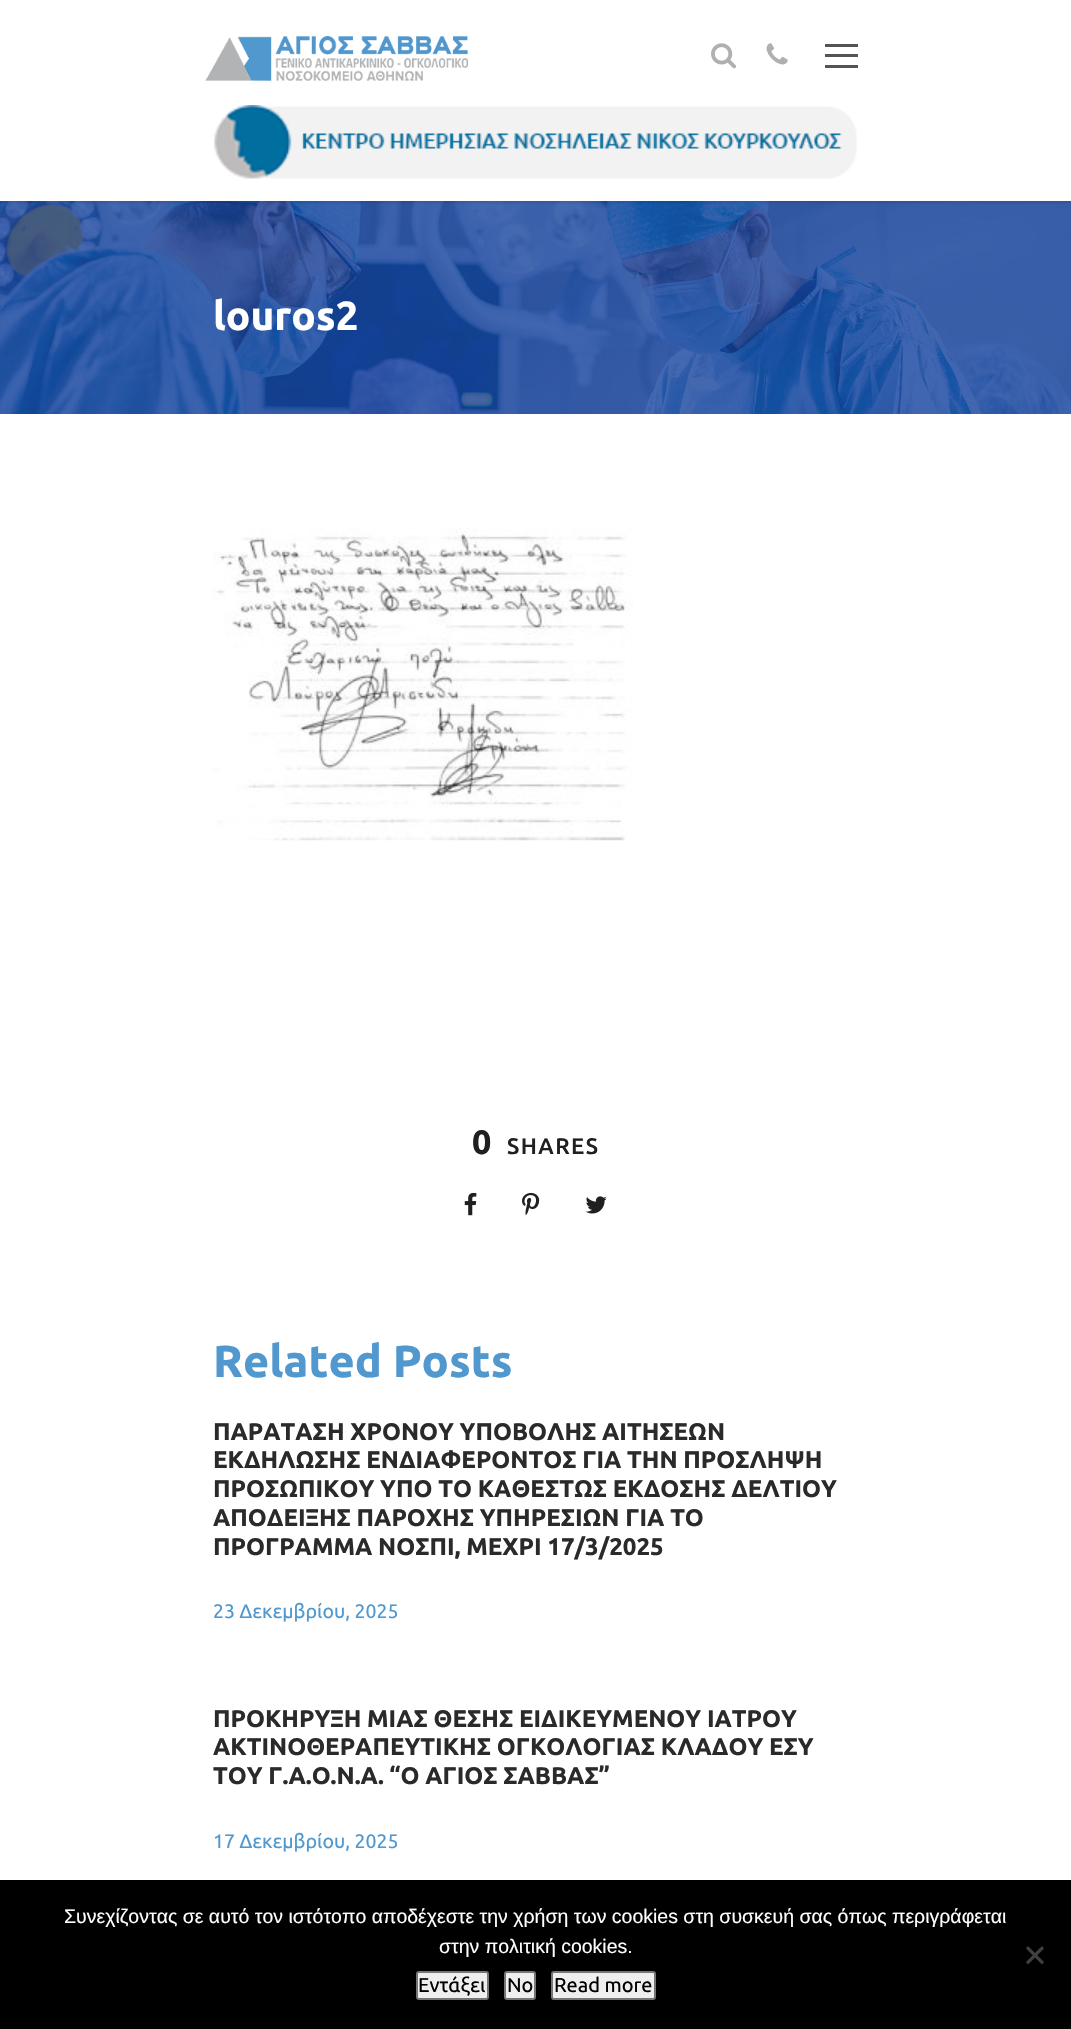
#include "include/core/SkBlurTypes.h"
#include "include/core/SkCanvas.h"
#include "include/core/SkData.h"
#include "include/core/SkFont.h"
#include "include/core/SkFontMgr.h"
#include "include/core/SkImage.h"
#include "include/core/SkMaskFilter.h"
#include "include/core/SkPaint.h"
#include "include/core/SkPathBuilder.h"
#include "include/core/SkTextBlob.h"
#include "include/effects/SkDashPathEffect.h"
#include "include/effects/SkGradientShader.h"
#include "include/utils/SkParsePath.h"

extern sk_sp<SkFontMgr> fontMgr;

void draw(SkCanvas* canvas) {
  SkPaint p;
  p.setAntiAlias(true);
  auto spacedText = [&](const char* s, float x, float y, const SkFont& font, const SkPaint& ink, float letter, float word) {
    std::vector<SkGlyphID> glyphs(font.countText(s, strlen(s), SkTextEncoding::kUTF8));
    std::vector<float> xs(glyphs.size());
    font.textToGlyphs(s, strlen(s), SkTextEncoding::kUTF8, glyphs);
    font.getXPos(glyphs, xs, x);
    float extra = 0;
    for (size_t i = 0; i < glyphs.size(); i++) {
      xs[i] += extra;
      extra += letter + word * (glyphs[i] == font.unicharToGlyph(' '));
    }
    canvas->drawTextBlob(SkTextBlob::MakeFromPosHGlyphs(glyphs, xs, y, font), 0, 0, ink);
  };
  canvas->clear(SK_ColorWHITE);
  canvas->drawImageRect(SkImages::DeferredFromEncodedData(SkData::MakeFromFileName("images/5.png")), SkRect::MakeLTRB(0, 201, 1071, 414), SkSamplingOptions());
  canvas->save();
  canvas->clipRect(SkRect::MakeLTRB(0, 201, 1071, 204));
  p.setColor(SkColorSetARGB(26, 0, 0, 0));
  p.setMaskFilter(SkMaskFilter::MakeBlur(kNormal_SkBlurStyle, 1.5f));
  canvas->drawRect(SkRect::MakeLTRB(0, 2, 1071, 203), p);
  p.setMaskFilter(nullptr);
  canvas->restore();
  canvas->drawImageRect(SkImages::DeferredFromEncodedData(SkData::MakeFromFileName("images/1.png")), SkRect::MakeLTRB(205, 36, 468, 81), SkSamplingOptions());
  canvas->drawImageRect(SkImages::DeferredFromEncodedData(SkData::MakeFromFileName("images/2.png")), SkRect::MakeLTRB(711, 43, 736, 69), SkSamplingOptions());
  canvas->drawImageRect(SkImages::DeferredFromEncodedData(SkData::MakeFromFileName("images/3.png")), SkRect::MakeLTRB(766, 43, 788, 65), SkSamplingOptions());
  p.setColor(SkColorSetRGB(84, 84, 84));
  canvas->drawRect(SkRect::MakeLTRB(825, 44, 858, 47), p);
  canvas->drawRect(SkRect::MakeLTRB(825, 54, 858, 57), p);
  canvas->drawRect(SkRect::MakeLTRB(825, 65, 858, 68), p);
  canvas->drawImageRect(SkImages::DeferredFromEncodedData(SkData::MakeFromFileName("images/4.png")), SkRect::MakeLTRB(214, 105, 857, 179), SkSamplingOptions());
  canvas->drawImageRect(SkImages::DeferredFromEncodedData(SkData::MakeFromFileName("images/6.png")), SkRect::MakeLTRB(213, 528, 633, 841), SkSamplingOptions());
  canvas->drawImageRect(SkImages::DeferredFromEncodedData(SkData::MakeFromFileName("images/7.png")), SkRect::MakeLTRB(464, 1192, 477, 1216), SkSamplingOptions());
  canvas->drawImageRect(SkImages::DeferredFromEncodedData(SkData::MakeFromFileName("images/8.png")), SkRect::MakeLTRB(522, 1192, 540, 1216), SkSamplingOptions());
  canvas->drawImageRect(SkImages::DeferredFromEncodedData(SkData::MakeFromFileName("images/9.png")), SkRect::MakeLTRB(585, 1196, 607, 1214), SkSamplingOptions());
  p.setColor(SK_ColorBLACK);
  canvas->drawRect(SkRect::MakeLTRB(0, 1880, 1071, 2029), p);
  p.setColor(SkColorSetRGB(64, 64, 64));
  canvas->drawPath(SkPathBuilder().moveTo(1042, 1946).lineTo(1044, 1948.5f).lineTo(1028, 1964.5f).lineTo(1026, 1962).close().detach(), p);
  canvas->drawPath(SkPathBuilder().moveTo(1026, 1948.5f).lineTo(1028, 1946).lineTo(1044, 1962).lineTo(1042, 1964.5f).close().detach(), p);
  p.setColor(SkColorSetRGB(239, 239, 239));
  canvas->drawRoundRect(SkRect::MakeLTRB(417, 1972, 488, 1999), 2, 2, p);
  p.setStyle(SkPaint::kStroke_Style);
  p.setStrokeWidth(2);
  p.setColor(SkColorSetRGB(118, 118, 118));
  canvas->drawRoundRect(SkRect::MakeLTRB(417, 1972, 488, 1999), 2, 2, p);
  p.setStyle(SkPaint::kFill_Style);
  p.setColor(SkColorSetRGB(239, 239, 239));
  canvas->drawRoundRect(SkRect::MakeLTRB(505, 1972, 535, 1999), 2, 2, p);
  p.setStyle(SkPaint::kStroke_Style);
  p.setColor(SkColorSetRGB(118, 118, 118));
  canvas->drawRoundRect(SkRect::MakeLTRB(505, 1972, 535, 1999), 2, 2, p);
  p.setStyle(SkPaint::kFill_Style);
  p.setColor(SkColorSetRGB(239, 239, 239));
  canvas->drawRoundRect(SkRect::MakeLTRB(552, 1972, 655, 1999), 2, 2, p);
  p.setStyle(SkPaint::kStroke_Style);
  p.setColor(SkColorSetRGB(118, 118, 118));
  canvas->drawRoundRect(SkRect::MakeLTRB(552, 1972, 655, 1999), 2, 2, p);
  SkFont font1(fontMgr->matchFamilyStyle("Ubuntu", SkFontStyle::Bold()), 40.5f);
  font1.setSubpixel(true);
  p.setStyle(SkPaint::kFill_Style);
  p.setColor(SK_ColorWHITE);
  canvas->drawString("louros2", 213, 330, font1, p);
  SkFont font2(fontMgr->matchFamilyStyle("Ubuntu", SkFontStyle::Bold()), 34);
  font2.setSubpixel(true);
  p.setColor(SkColorSetRGB(32, 32, 32));
  canvas->drawString("0", 472, 1154, font2, p);
  SkFont font3(fontMgr->matchFamilyStyle("Ubuntu", SkFontStyle(500, SkFontStyle::kNormal_Width, SkFontStyle::kUpright_Slant)), 22.5f);
  font3.setSubpixel(true);
  spacedText("SHARES", 507, 1154, font3, p, 1.5f, 0);
  SkFont font4(fontMgr->matchFamilyStyle("Ubuntu", SkFontStyle::Bold()), 45);
  font4.setSubpixel(true);
  p.setColor(SkColorSetRGB(80, 152, 206));
  canvas->drawString("Related Posts", 213, 1377, font4, p);
  SkFont font5(fontMgr->matchFamilyStyle("Ubuntu", SkFontStyle::Bold()), 24);
  font5.setSubpixel(true);
  p.setColor(SkColorSetRGB(42, 42, 42));
  canvas->drawString("ΠΑΡΑΤΑΣΗ ΧΡΟΝΟΥ ΥΠΟΒΟΛΗΣ ΑΙΤΗΣΕΩΝ", 213, 1440, font5, p);
  canvas->drawString("ΕΚΔΗΛΩΣΗΣ ΕΝΔΙΑΦΕΡΟΝΤΟΣ ΓΙΑ ΤΗΝ ΠΡΟΣΛΗΨΗ", 213, 1468, font5, p);
  canvas->drawString("ΠΡΟΣΩΠΙΚΟΥ ΥΠΟ ΤΟ ΚΑΘΕΣΤΩΣ ΕΚΔΟΣΗΣ ΔΕΛΤΙΟΥ", 213, 1497, font5, p);
  canvas->drawString("ΑΠΟΔΕΙΞΗΣ ΠΑΡΟΧΗΣ ΥΠΗΡΕΣΙΩΝ ΓΙΑ ΤΟ", 213, 1526, font5, p);
  canvas->drawString("ΠΡΟΓΡΑΜΜΑ ΝΟΣΠΙ, ΜΕΧΡΙ 17/3/2025", 213, 1555, font5, p);
  SkFont font6(fontMgr->matchFamilyStyle("Ubuntu", SkFontStyle::Normal()), 19.5f);
  font6.setSubpixel(true);
  p.setColor(SkColorSetRGB(80, 152, 206));
  canvas->drawString("23 Δεκεμβρίου, 2025", 213, 1618, font6, p);
  p.setColor(SkColorSetRGB(42, 42, 42));
  canvas->drawString("ΠΡΟΚΗΡΥΞΗ ΜΙΑΣ ΘΕΣΗΣ ΕΙΔΙΚΕΥΜΕΝΟΥ ΙΑΤΡΟΥ", 213, 1727, font5, p);
  canvas->drawString("ΑΚΤΙΝΟΘΕΡΑΠΕΥΤΙΚΗΣ ΟΓΚΟΛΟΓΙΑΣ ΚΛΑΔΟΥ ΕΣΥ", 213, 1755, font5, p);
  canvas->drawString("ΤΟΥ Γ.Α.Ο.Ν.Α. “Ο ΑΓΙΟΣ ΣΑΒΒΑΣ”", 213, 1784, font5, p);
  p.setColor(SkColorSetRGB(80, 152, 206));
  canvas->drawString("17 Δεκεμβρίου, 2025", 213, 1848, font6, p);
  SkFont font7(fontMgr->matchFamilyStyle("Liberation Sans", SkFontStyle::Normal()), 19.5f);
  font7.setSubpixel(true);
  p.setColor(SK_ColorWHITE);
  canvas->drawString("Συνεχίζοντας σε αυτό τον ιστότοπο αποδέχεστε την χρήση των cookies στη συσκευή σας όπως περιγράφεται", 64, 1923, font7, p);
  canvas->drawString("στην πολιτική cookies.", 439, 1953, font7, p);
  SkFont font8(fontMgr->matchFamilyStyle("Ubuntu", SkFontStyle::Normal()), 20);
  font8.setSubpixel(true);
  p.setColor(SK_ColorBLACK);
  canvas->drawString("Εντάξει", 418, 1992, font8, p);
  canvas->drawString("No", 507, 1992, font8, p);
  canvas->drawString("Read more", 554, 1992, font8, p);
}
